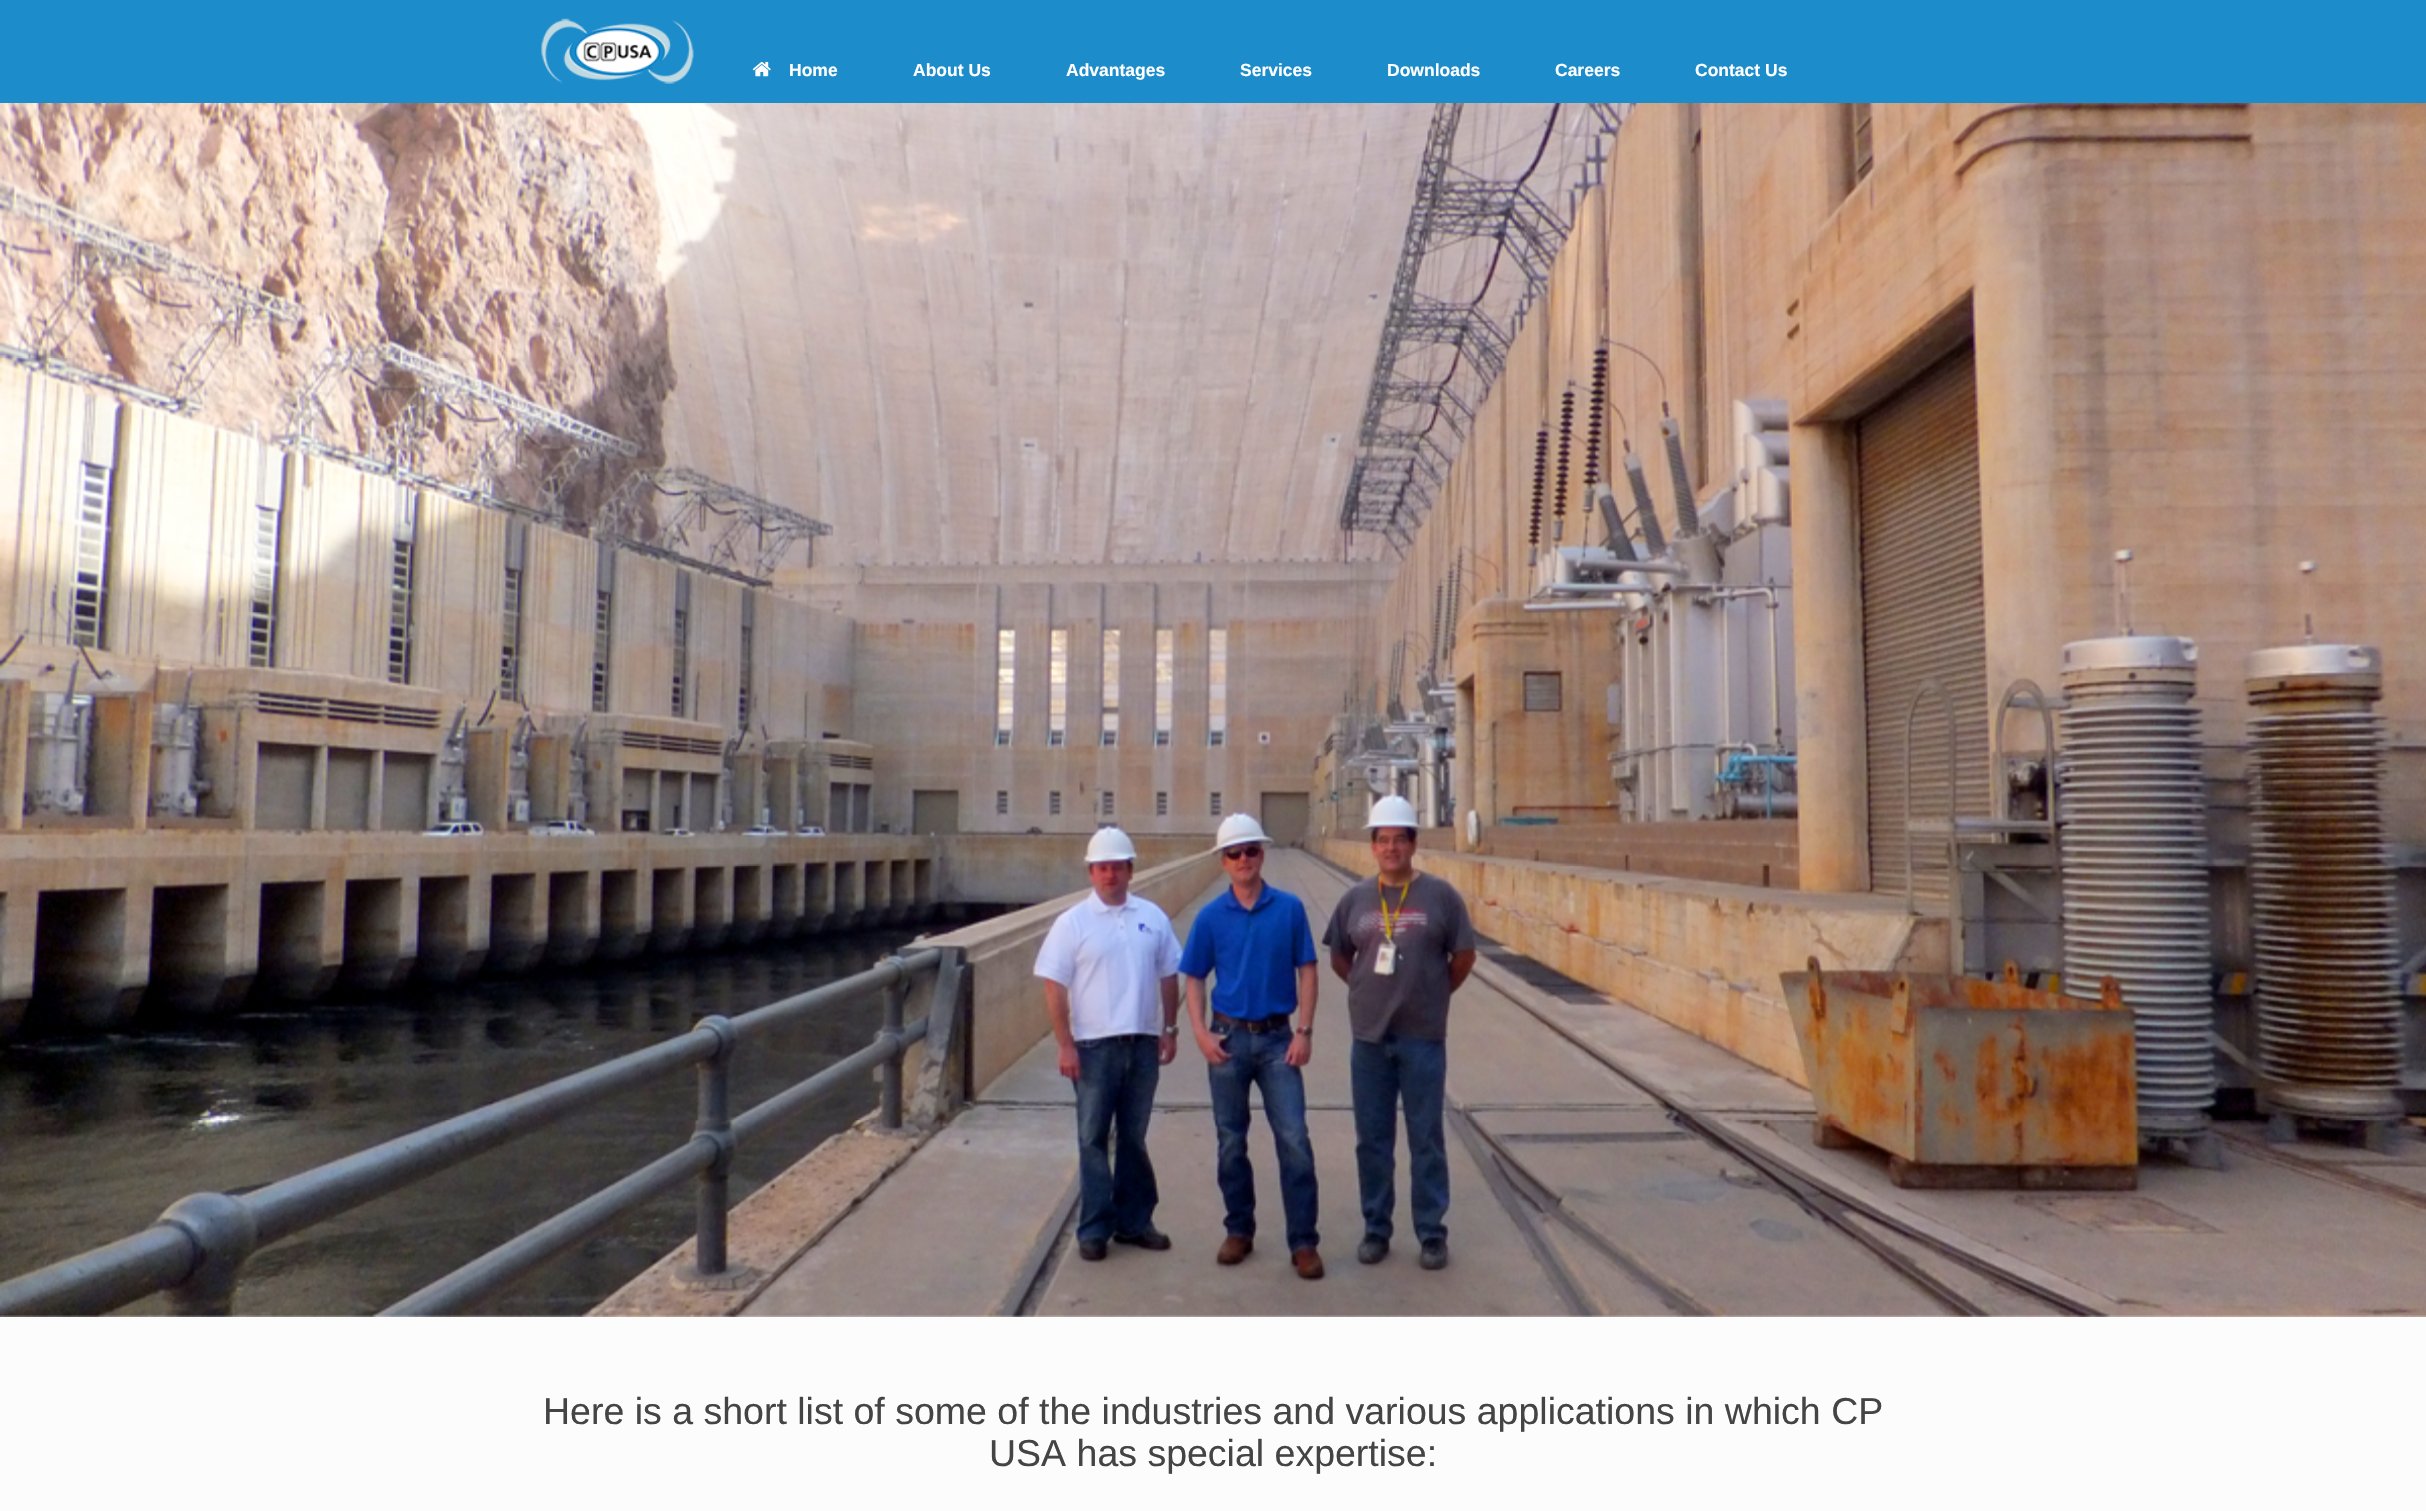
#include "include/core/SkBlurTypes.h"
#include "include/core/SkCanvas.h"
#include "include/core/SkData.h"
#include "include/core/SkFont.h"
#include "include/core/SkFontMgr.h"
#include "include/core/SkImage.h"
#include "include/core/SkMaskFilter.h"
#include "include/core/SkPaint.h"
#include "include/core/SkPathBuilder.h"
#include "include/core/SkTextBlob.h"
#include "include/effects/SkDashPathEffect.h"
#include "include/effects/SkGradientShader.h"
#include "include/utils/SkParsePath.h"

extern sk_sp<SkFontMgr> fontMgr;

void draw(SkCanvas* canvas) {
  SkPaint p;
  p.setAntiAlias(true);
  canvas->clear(SK_ColorWHITE);
  p.setColor(SkColorSetRGB(28, 140, 203));
  canvas->drawRect(SkRect::MakeLTRB(0, 0, 2426, 103), p);
  canvas->drawImageRect(SkImages::DeferredFromEncodedData(SkData::MakeFromFileName("images/1.png")), SkRect::MakeLTRB(541, 18, 694, 84), SkSamplingOptions());
  canvas->drawImageRect(SkImages::DeferredFromEncodedData(SkData::MakeFromFileName("images/2.png")), SkRect::MakeLTRB(752, 61, 771, 77), SkSamplingOptions());
  p.setColor(SkColorSetRGB(252, 252, 252));
  canvas->drawRect(SkRect::MakeLTRB(0, 1316, 2426, 1511), p);
  canvas->drawImageRect(SkImages::DeferredFromEncodedData(SkData::MakeFromFileName("images/3.png")), SkRect::MakeLTRB(0, 103, 2426, 1317), SkSamplingOptions());
  SkFont font1(fontMgr->matchFamilyStyle("Liberation Sans", SkFontStyle::Bold()), 17.5f);
  font1.setSubpixel(true);
  p.setColor(SK_ColorWHITE);
  canvas->drawString("Home", 789, 76, font1, p);
  canvas->drawString("About Us", 913, 76, font1, p);
  canvas->drawString("Advantages", 1066, 76, font1, p);
  canvas->drawString("Services", 1240, 76, font1, p);
  canvas->drawString("Downloads", 1387, 76, font1, p);
  canvas->drawString("Careers", 1555, 76, font1, p);
  canvas->drawString("Contact Us", 1695, 76, font1, p);
  SkFont font2(fontMgr->matchFamilyStyle("Liberation Sans", SkFontStyle::Normal()), 37.5f);
  font2.setSubpixel(true);
  p.setColor(SkColorSetRGB(68, 68, 68));
  canvas->drawString("Here is a short list of some of the industries and various applications in which CP", 543, 1424, font2, p);
  canvas->drawString("USA has special expertise:", 989, 1466, font2, p);
}
